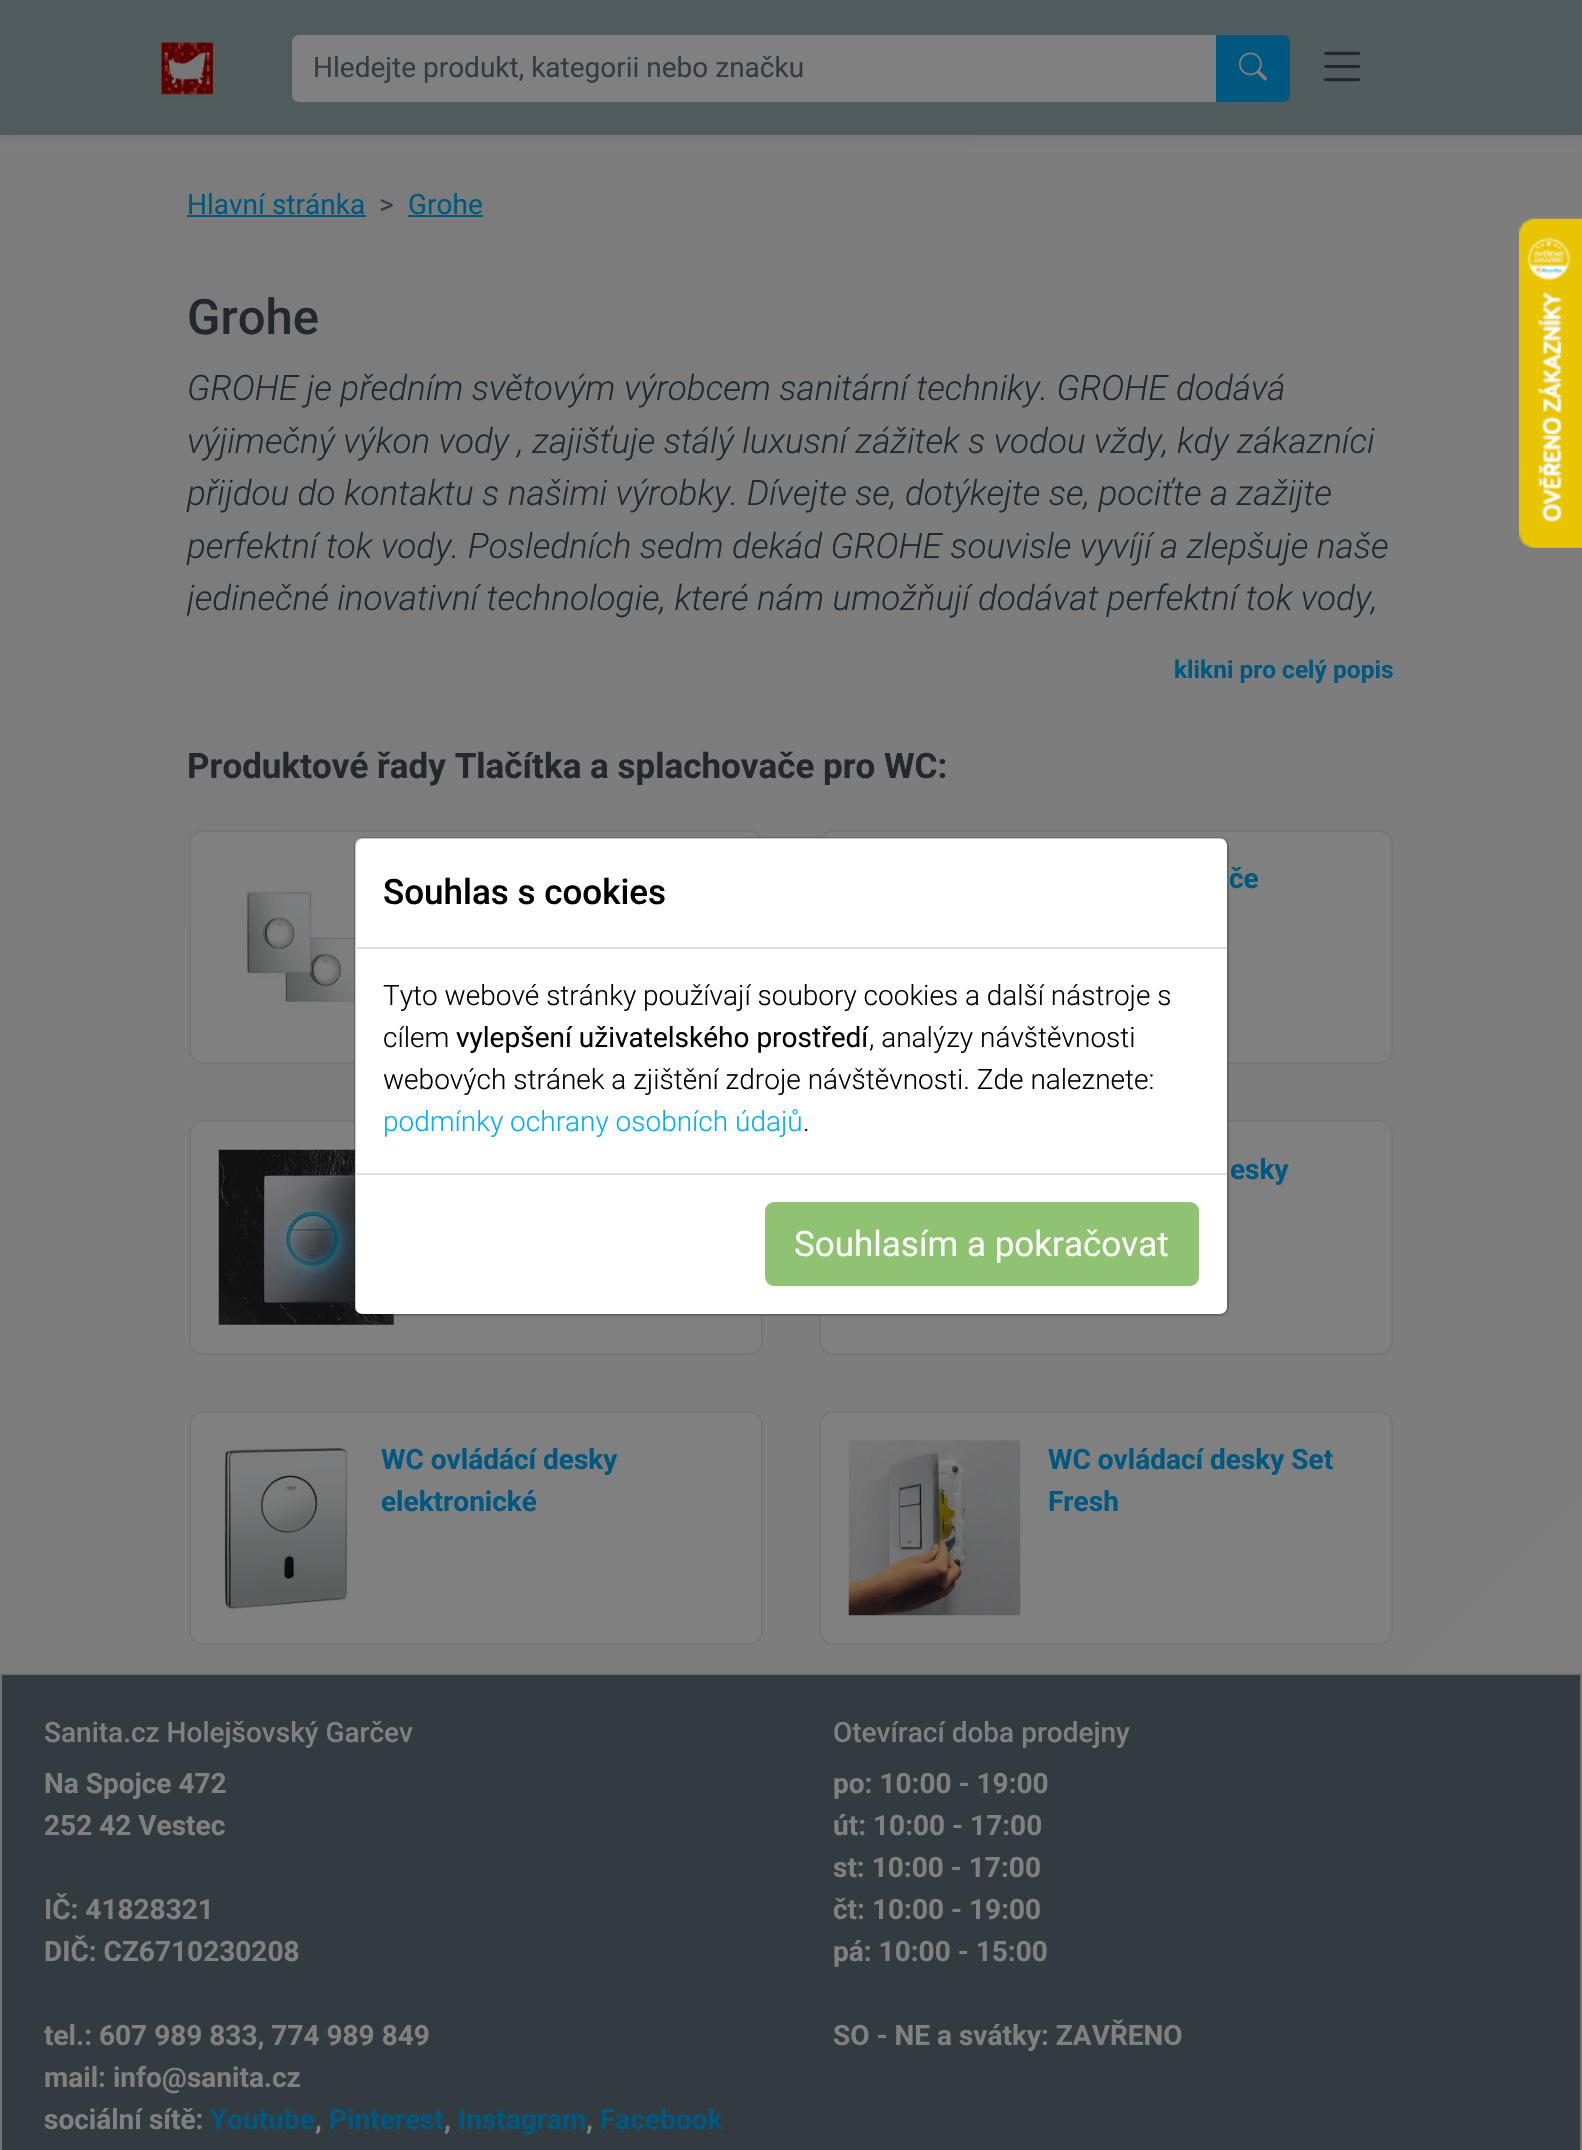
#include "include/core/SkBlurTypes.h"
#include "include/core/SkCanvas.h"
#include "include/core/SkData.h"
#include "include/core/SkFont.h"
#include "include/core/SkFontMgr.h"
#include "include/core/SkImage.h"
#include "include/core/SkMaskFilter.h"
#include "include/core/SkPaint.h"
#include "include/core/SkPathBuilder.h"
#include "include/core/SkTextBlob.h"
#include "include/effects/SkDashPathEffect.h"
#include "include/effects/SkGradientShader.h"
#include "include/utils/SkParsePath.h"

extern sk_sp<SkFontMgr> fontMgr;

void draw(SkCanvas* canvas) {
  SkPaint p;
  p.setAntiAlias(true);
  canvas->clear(SK_ColorWHITE);
  {
    const SkColor colors[] = {SkColorSetRGB(126, 126, 126), SkColorSetRGB(124, 124, 124)};
    const float stops[] = {0, 1};
    const SkPoint ends[] = {{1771, 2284}, {-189, 324}};
    p.setShader(SkGradientShader::MakeLinear(ends, colors, stops, 2, SkTileMode::kClamp));
    p.setAlpha(255);
  }
  canvas->drawRect(SkRect::MakeLTRB(0, 135, 1582, 1673), p);
  p.setShader(nullptr);
  p.setColor(SkColorSetARGB(31, 81, 86, 92));
  p.setMaskFilter(SkMaskFilter::MakeBlur(kNormal_SkBlurStyle, 5));
  canvas->drawRect(SkRect::MakeLTRB(0, 4, 1582, 138), p);
  p.setMaskFilter(nullptr);
  p.setColor(SkColorSetRGB(80, 92, 94));
  canvas->drawRect(SkRect::MakeLTRB(0, 0, 1582, 135), p);
  canvas->drawImageRect(SkImages::DeferredFromEncodedData(SkData::MakeFromFileName("images/1.png")), SkRect::MakeLTRB(161, 42, 214, 95), SkSamplingOptions());
  p.setColor(SkColorSetRGB(128, 128, 128));
  canvas->drawPath(SkPathBuilder().moveTo(299, 35).lineTo(1218, 35).lineTo(1218, 102).lineTo(299, 102).cubicTo(295, 102, 292, 99, 292, 95).lineTo(292, 42).cubicTo(292, 38, 295, 35, 299, 35).close().detach(), p);
  p.setColor(SkColorSetRGB(0, 87, 128));
  canvas->drawPath(SkPathBuilder().moveTo(1217, 36).lineTo(1283, 36).cubicTo(1286.5f, 36, 1289, 38.5f, 1289, 42).lineTo(1289, 95).cubicTo(1289, 98.5f, 1286.5f, 101, 1283, 101).lineTo(1217, 101).close().detach(), p);
  p.setStyle(SkPaint::kStroke_Style);
  p.setStrokeWidth(2);
  canvas->drawPath(SkPathBuilder().moveTo(1217, 36).lineTo(1283, 36).cubicTo(1286.5f, 36, 1289, 38.5f, 1289, 42).lineTo(1289, 95).cubicTo(1289, 98.5f, 1286.5f, 101, 1283, 101).lineTo(1217, 101).close().detach(), p);
  canvas->drawImageRect(SkImages::DeferredFromEncodedData(SkData::MakeFromFileName("images/2.png")), SkRect::MakeLTRB(1239, 52, 1267, 81), SkSamplingOptions());
  canvas->drawImageRect(SkImages::DeferredFromEncodedData(SkData::MakeFromFileName("images/3.png")), SkRect::MakeLTRB(1324, 51, 1361, 82), SkSamplingOptions());
  p.setStyle(SkPaint::kFill_Style);
  canvas->drawRect(SkRect::MakeLTRB(187, 215, 366, 217), p);
  canvas->drawRect(SkRect::MakeLTRB(408, 215, 483, 217), p);
  p.setColor(SkColorSetRGB(128, 128, 128));
  canvas->drawRoundRect(SkRect::MakeLTRB(190, 831, 762, 1063), 13, 13, p);
  p.setStyle(SkPaint::kStroke_Style);
  p.setColor(SkColorSetRGB(118, 118, 118));
  canvas->drawRoundRect(SkRect::MakeLTRB(190, 831, 762, 1063), 13, 13, p);
  canvas->drawImageRect(SkImages::DeferredFromEncodedData(SkData::MakeFromFileName("images/4.png")), SkRect::MakeLTRB(246, 891, 355, 1002), SkSamplingOptions());
  p.setStyle(SkPaint::kFill_Style);
  p.setColor(SkColorSetRGB(128, 128, 128));
  canvas->drawRoundRect(SkRect::MakeLTRB(820, 831, 1392, 1063), 13, 13, p);
  p.setStyle(SkPaint::kStroke_Style);
  p.setColor(SkColorSetRGB(118, 118, 118));
  canvas->drawRoundRect(SkRect::MakeLTRB(820, 831, 1392, 1063), 13, 13, p);
  p.setStyle(SkPaint::kFill_Style);
  p.setColor(SkColorSetRGB(128, 128, 128));
  canvas->drawRoundRect(SkRect::MakeLTRB(190, 1121, 762, 1354), 13, 13, p);
  p.setStyle(SkPaint::kStroke_Style);
  p.setColor(SkColorSetRGB(118, 118, 118));
  canvas->drawRoundRect(SkRect::MakeLTRB(190, 1121, 762, 1354), 13, 13, p);
  canvas->drawImageRect(SkImages::DeferredFromEncodedData(SkData::MakeFromFileName("images/5.png")), SkRect::MakeLTRB(218, 1149, 394, 1325), SkSamplingOptions());
  p.setStyle(SkPaint::kFill_Style);
  p.setColor(SkColorSetRGB(128, 128, 128));
  canvas->drawRoundRect(SkRect::MakeLTRB(820, 1121, 1392, 1354), 13, 13, p);
  p.setStyle(SkPaint::kStroke_Style);
  p.setColor(SkColorSetRGB(118, 118, 118));
  canvas->drawRoundRect(SkRect::MakeLTRB(820, 1121, 1392, 1354), 13, 13, p);
  p.setStyle(SkPaint::kFill_Style);
  p.setColor(SkColorSetRGB(128, 128, 128));
  canvas->drawRoundRect(SkRect::MakeLTRB(190, 1412, 762, 1644), 13, 13, p);
  p.setStyle(SkPaint::kStroke_Style);
  p.setColor(SkColorSetRGB(118, 118, 118));
  canvas->drawRoundRect(SkRect::MakeLTRB(190, 1412, 762, 1644), 13, 13, p);
  canvas->drawImageRect(SkImages::DeferredFromEncodedData(SkData::MakeFromFileName("images/6.png")), SkRect::MakeLTRB(224, 1447, 348, 1609), SkSamplingOptions());
  p.setStyle(SkPaint::kFill_Style);
  p.setColor(SkColorSetRGB(128, 128, 128));
  canvas->drawRoundRect(SkRect::MakeLTRB(820, 1412, 1392, 1644), 13, 13, p);
  p.setStyle(SkPaint::kStroke_Style);
  p.setColor(SkColorSetRGB(118, 118, 118));
  canvas->drawRoundRect(SkRect::MakeLTRB(820, 1412, 1392, 1644), 13, 13, p);
  canvas->drawImageRect(SkImages::DeferredFromEncodedData(SkData::MakeFromFileName("images/7.png")), SkRect::MakeLTRB(848, 1440, 1021, 1616), SkSamplingOptions());
  p.setStyle(SkPaint::kFill_Style);
  p.setColor(SkColorSetRGB(50, 59, 63));
  canvas->drawRect(SkRect::MakeLTRB(1, 1674, 1581, 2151), p);
  p.setStyle(SkPaint::kStroke_Style);
  p.setColor(SkColorSetRGB(111, 113, 115));
  canvas->drawRect(SkRect::MakeLTRB(1, 1674, 1581, 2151), p);
  p.setStyle(SkPaint::kFill_Style);
  p.setColor(SK_ColorWHITE);
  canvas->drawRoundRect(SkRect::MakeLTRB(355, 838, 1227, 1314), 7, 7, p);
  p.setStyle(SkPaint::kStroke_Style);
  p.setColor(SkColorSetARGB(51, 0, 0, 0));
  canvas->drawRoundRect(SkRect::MakeLTRB(355, 838, 1228, 1315), 8, 8, p);
  p.setStyle(SkPaint::kFill_Style);
  p.setColor(SkColorSetRGB(222, 226, 230));
  canvas->drawRect(SkRect::MakeLTRB(355, 947, 1227, 949), p);
  canvas->drawRect(SkRect::MakeLTRB(355, 1173, 1227, 1175), p);
  p.setColor(SkColorSetRGB(143, 194, 113));
  canvas->drawRoundRect(SkRect::MakeLTRB(766, 1203, 1198, 1285), 8, 8, p);
  p.setStyle(SkPaint::kStroke_Style);
  canvas->drawRoundRect(SkRect::MakeLTRB(766, 1203, 1198, 1285), 8, 8, p);
  canvas->drawImageRect(SkImages::DeferredFromEncodedData(SkData::MakeFromFileName("images/8.png")), SkRect::MakeLTRB(1519, 218, 1582, 548), SkSamplingOptions());
  SkFont font1(fontMgr->matchFamilyStyle("Roboto", SkFontStyle::Normal()), 28);
  font1.setSubpixel(true);
  p.setStyle(SkPaint::kFill_Style);
  p.setColor(SkColorSetRGB(54, 59, 63));
  canvas->drawString("Hledejte produkt, kategorii nebo značku", 313, 77, font1, p);
  p.setColor(SkColorSetRGB(0, 87, 128));
  canvas->drawString("Hlavní stránka", 187, 214, font1, p);
  p.setColor(SkColorSetRGB(54, 59, 63));
  canvas->drawString(">", 379, 214, font1, p);
  p.setColor(SkColorSetRGB(0, 87, 128));
  canvas->drawString("Grohe", 408, 214, font1, p);
  SkFont font2(fontMgr->matchFamilyStyle("Roboto", SkFontStyle(500, SkFontStyle::kNormal_Width, SkFontStyle::kUpright_Slant)), 49);
  font2.setSubpixel(true);
  p.setColor(SkColorSetRGB(34, 40, 44));
  canvas->drawString("Grohe", 187, 334, font2, p);
  SkFont font3(fontMgr->matchFamilyStyle("Roboto", SkFontStyle(300, SkFontStyle::kNormal_Width, SkFontStyle::kItalic_Slant)), 35);
  font3.setSubpixel(true);
  canvas->drawString("GROHE je předním světovým výrobcem sanitární techniky. GROHE dodává", 187, 400, font3, p);
  canvas->drawString("výjimečný výkon vody , zajišťuje stálý luxusní zážitek s vodou vždy, kdy zákazníci", 187, 453, font3, p);
  canvas->drawString("přijdou do kontaktu s našimi výrobky. Dívejte se, dotýkejte se, pociťte a zažijte", 187, 505, font3, p);
  canvas->drawString("perfektní tok vody. Posledních sedm dekád GROHE souvisle vyvíjí a zlepšuje naše", 187, 558, font3, p);
  canvas->save();
  canvas->clipRect(SkRect::MakeLTRB(187, 362, 1395, 625));
  canvas->drawString("jedinečné inovativní technologie, které nám umožňují dodávat perfektní tok vody,", 187, 610, font3, p);
  canvas->restore();
  SkFont font4(fontMgr->matchFamilyStyle("Roboto", SkFontStyle::Bold()), 24.5f);
  font4.setSubpixel(true);
  p.setColor(SkColorSetRGB(0, 87, 128));
  canvas->drawString("klikni pro celý popis", 1174, 678, font4, p);
  SkFont font5(fontMgr->matchFamilyStyle("Roboto", SkFontStyle::Bold()), 35);
  font5.setSubpixel(true);
  p.setColor(SkColorSetRGB(34, 40, 44));
  canvas->drawString("Produktové řady Tlačítka a splachovače pro WC:", 187, 778, font5, p);
  SkFont font6(fontMgr->matchFamilyStyle("Roboto", SkFontStyle::Bold()), 28);
  font6.setSubpixel(true);
  p.setColor(SkColorSetRGB(0, 87, 128));
  canvas->drawString("če", 1229, 888, font6, p);
  canvas->drawString("esky", 1230, 1179, font6, p);
  canvas->drawString("WC ovládácí desky", 381, 1469, font6, p);
  canvas->drawString("elektronické", 381, 1511, font6, p);
  canvas->drawString("WC ovládací desky Set", 1048, 1469, font6, p);
  canvas->drawString("Fresh", 1048, 1511, font6, p);
  SkFont font7(fontMgr->matchFamilyStyle("Roboto", SkFontStyle(500, SkFontStyle::kNormal_Width, SkFontStyle::kUpright_Slant)), 35);
  font7.setSubpixel(true);
  p.setColor(SK_ColorBLACK);
  canvas->drawString("Souhlas s cookies", 383, 904, font7, p);
  SkFont font8(fontMgr->matchFamilyStyle("Roboto", SkFontStyle(300, SkFontStyle::kNormal_Width, SkFontStyle::kUpright_Slant)), 28);
  font8.setSubpixel(true);
  canvas->drawString("Tyto webové stránky používají soubory cookies a další nástroje s", 383, 1005, font8, p);
  canvas->drawString("cílem", 383, 1047, font8, p);
  canvas->drawString("vylepšení uživatelského prostředí", 456, 1047, font1, p);
  canvas->drawString(", analýzy návštěvnosti", 869, 1047, font8, p);
  canvas->drawString("webových stránek a zjištění zdroje návštěvnosti. Zde naleznete:", 383, 1089, font8, p);
  p.setColor(SkColorSetRGB(0, 174, 255));
  canvas->drawString("podmínky ochrany osobních údajů", 383, 1131, font8, p);
  p.setColor(SK_ColorBLACK);
  canvas->drawString(".", 803, 1131, font8, p);
  SkFont font9(fontMgr->matchFamilyStyle("Roboto", SkFontStyle::Normal()), 35);
  font9.setSubpixel(true);
  p.setColor(SK_ColorWHITE);
  canvas->drawString("Souhlasím a pokračovat", 794, 1256, font9, p);
  SkFont font10(fontMgr->matchFamilyStyle("Roboto", SkFontStyle(500, SkFontStyle::kNormal_Width, SkFontStyle::kUpright_Slant)), 28);
  font10.setSubpixel(true);
  p.setColor(SkColorSetRGB(128, 128, 128));
  canvas->drawString("Sanita.cz Holejšovský Garčev", 44, 1742, font10, p);
  canvas->drawString("Na Spojce 472", 44, 1793, font6, p);
  canvas->drawString("252 42 Vestec", 44, 1835, font6, p);
  canvas->drawString("IČ: 41828321", 44, 1919, font6, p);
  canvas->drawString("DIČ: CZ6710230208", 44, 1961, font6, p);
  canvas->drawString("tel.: 607 989 833, 774 989 849", 44, 2045, font6, p);
  canvas->drawString("mail: info@sanita.cz", 44, 2087, font6, p);
  canvas->drawString("sociální sítě:", 44, 2129, font6, p);
  p.setColor(SkColorSetRGB(0, 87, 128));
  canvas->drawString("Youtube", 210, 2129, font6, p);
  p.setColor(SkColorSetRGB(128, 128, 128));
  canvas->drawString(",", 315, 2129, font6, p);
  p.setColor(SkColorSetRGB(0, 87, 128));
  canvas->drawString("Pinterest", 329, 2129, font6, p);
  p.setColor(SkColorSetRGB(128, 128, 128));
  canvas->drawString(",", 444, 2129, font6, p);
  p.setColor(SkColorSetRGB(0, 87, 128));
  canvas->drawString("Instagram", 458, 2129, font6, p);
  p.setColor(SkColorSetRGB(128, 128, 128));
  canvas->drawString(",", 586, 2129, font6, p);
  p.setColor(SkColorSetRGB(0, 87, 128));
  canvas->drawString("Facebook", 600, 2129, font6, p);
  p.setColor(SkColorSetRGB(128, 128, 128));
  canvas->drawString("Otevírací doba prodejny", 833, 1742, font10, p);
  canvas->drawString("po: 10:00 - 19:00", 833, 1793, font6, p);
  canvas->drawString("út: 10:00 - 17:00", 833, 1835, font6, p);
  canvas->drawString("st: 10:00 - 17:00", 833, 1877, font6, p);
  canvas->drawString("čt: 10:00 - 19:00", 833, 1919, font6, p);
  canvas->drawString("pá: 10:00 - 15:00", 833, 1961, font6, p);
  canvas->drawString("SO - NE a svátky: ZAVŘENO", 833, 2045, font6, p);
}
